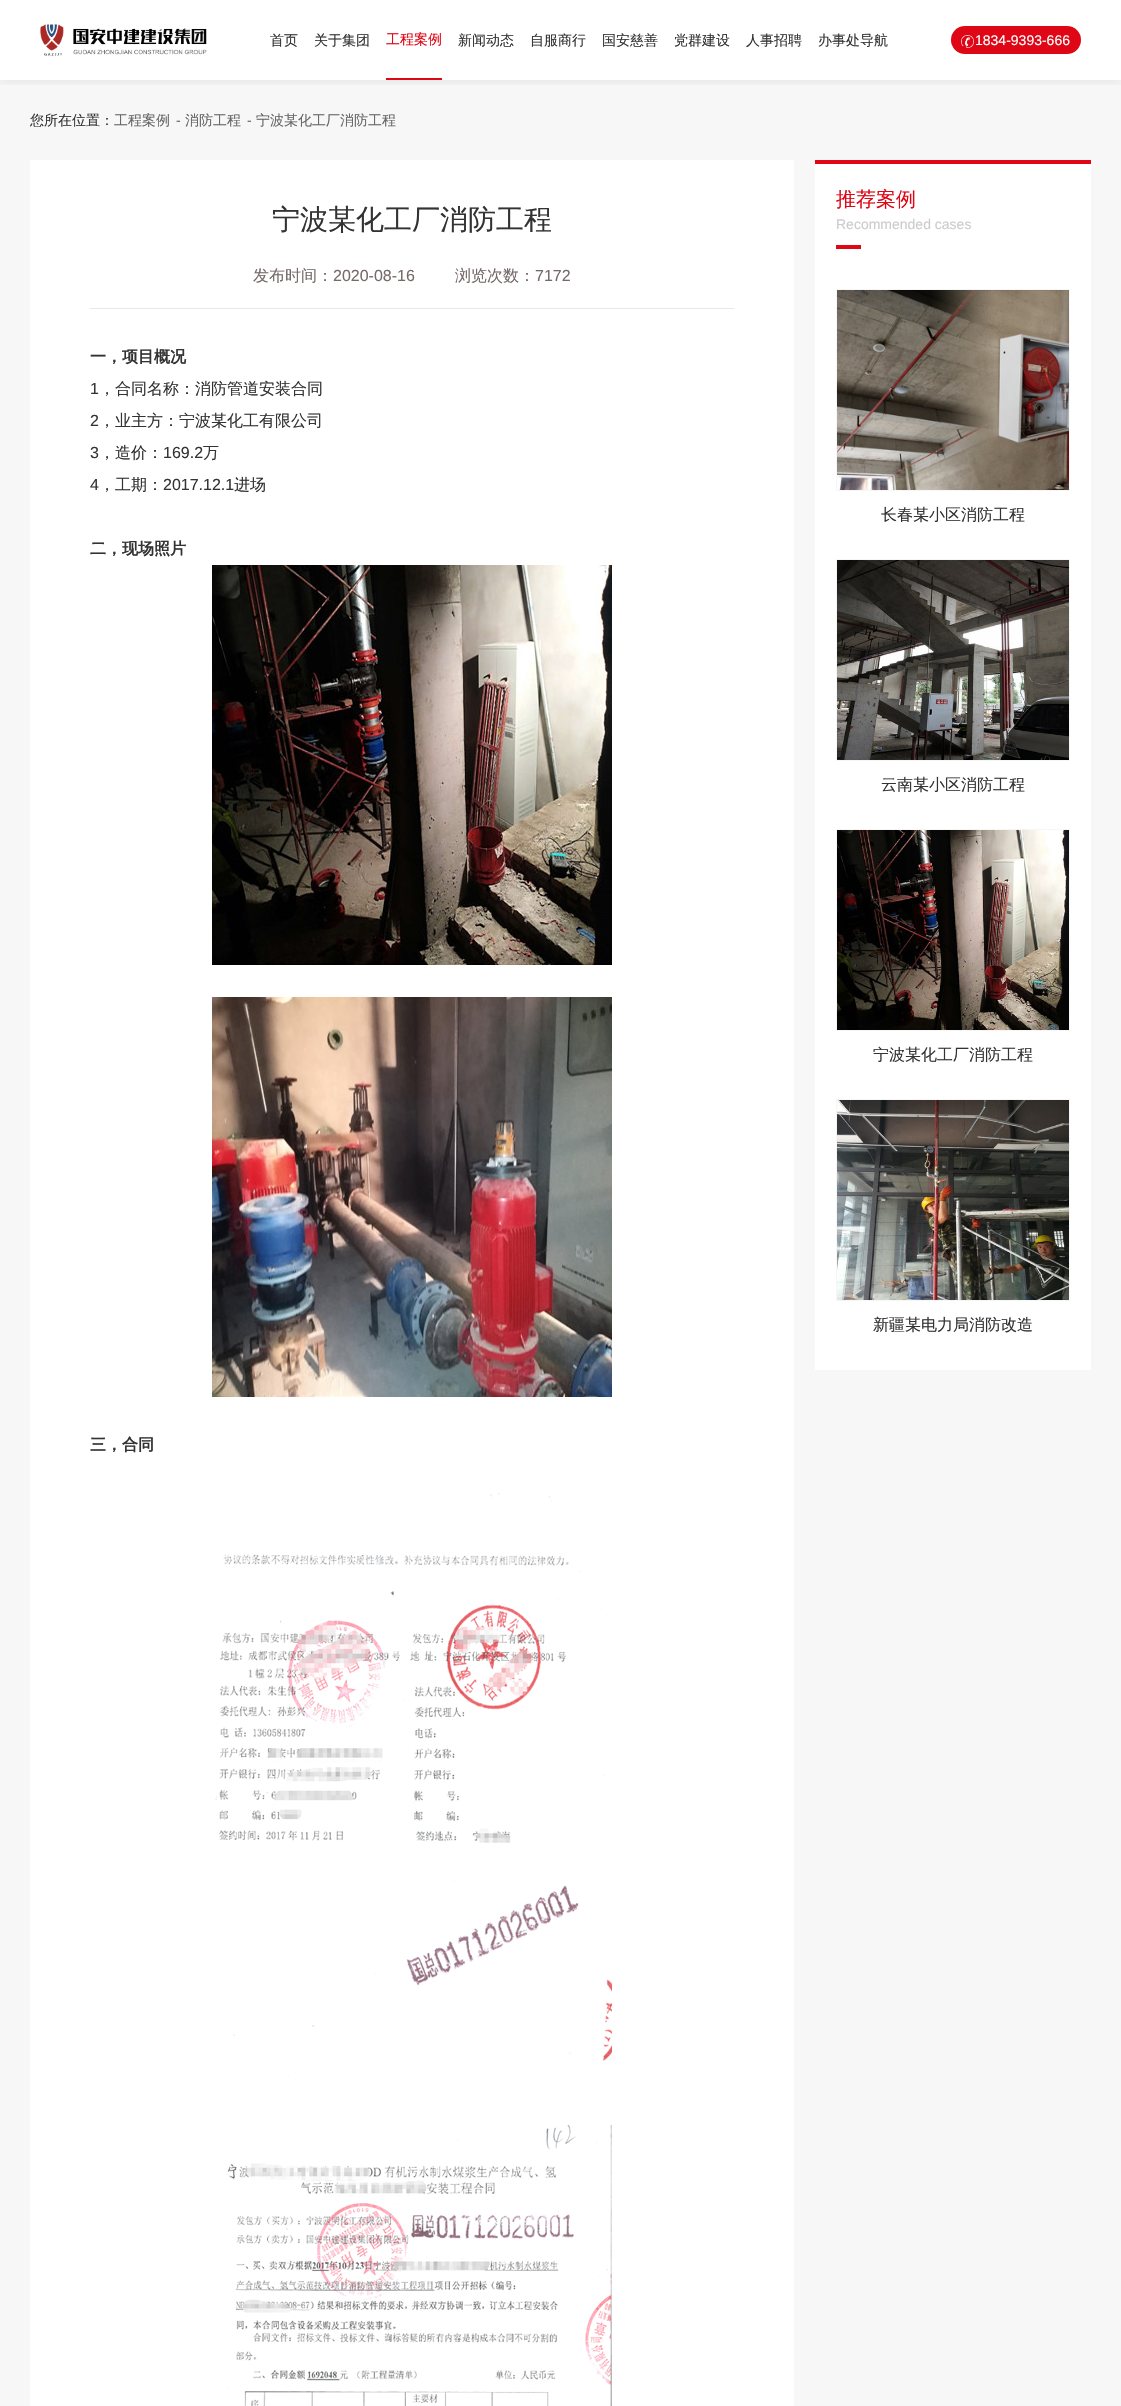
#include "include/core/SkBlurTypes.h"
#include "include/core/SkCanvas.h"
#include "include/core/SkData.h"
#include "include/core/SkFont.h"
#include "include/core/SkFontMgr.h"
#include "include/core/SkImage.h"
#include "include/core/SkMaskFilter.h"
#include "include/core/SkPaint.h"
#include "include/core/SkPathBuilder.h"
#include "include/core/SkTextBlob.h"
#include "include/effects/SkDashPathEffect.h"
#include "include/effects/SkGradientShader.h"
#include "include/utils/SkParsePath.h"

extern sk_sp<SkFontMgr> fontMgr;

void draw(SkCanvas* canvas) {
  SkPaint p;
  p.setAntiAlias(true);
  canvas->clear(SK_ColorWHITE);
  p.setColor(SkColorSetRGB(247, 247, 247));
  canvas->drawRect(SkRect::MakeLTRB(0, 80, 1121, 2406), p);
  canvas->save();
  canvas->clipRect(SkRect::MakeLTRB(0, 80, 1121, 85));
  p.setColor(SkColorSetARGB(18, 0, 0, 0));
  p.setMaskFilter(SkMaskFilter::MakeBlur(kNormal_SkBlurStyle, 5));
  canvas->drawRect(SkRect::MakeLTRB(0, 2, 1121, 82), p);
  p.setMaskFilter(nullptr);
  canvas->restore();
  canvas->drawImageRect(SkImages::DeferredFromEncodedData(SkData::MakeFromFileName("images/1.png")), SkRect::MakeLTRB(40, 24, 207, 56), SkSamplingOptions());
  p.setColor(SkColorSetRGB(223, 6, 21));
  canvas->drawRect(SkRect::MakeLTRB(386, 78, 442, 80), p);
  canvas->drawRoundRect(SkRect::MakeLTRB(951, 26, 1081, 54), 14, 14, p);
  canvas->drawImageRect(SkImages::DeferredFromEncodedData(SkData::MakeFromFileName("images/2.png")), SkRect::MakeLTRB(961, 35, 974, 48), SkSamplingOptions());
  p.setColor(SK_ColorWHITE);
  canvas->drawRect(SkRect::MakeLTRB(30, 160, 794, 2406), p);
  p.setColor(SkColorSetRGB(232, 232, 232));
  canvas->drawRect(SkRect::MakeLTRB(90, 308, 734, 309), p);
  canvas->drawImageRect(SkImages::DeferredFromEncodedData(SkData::MakeFromFileName("images/3.png")), SkRect::MakeLTRB(212, 565, 612, 965), SkSamplingOptions());
  canvas->drawImageRect(SkImages::DeferredFromEncodedData(SkData::MakeFromFileName("images/4.png")), SkRect::MakeLTRB(212, 997, 612, 1397), SkSamplingOptions());
  canvas->drawImageRect(SkImages::DeferredFromEncodedData(SkData::MakeFromFileName("images/5.png")), SkRect::MakeLTRB(215, 1493, 612, 2077), SkSamplingOptions());
  canvas->drawImageRect(SkImages::DeferredFromEncodedData(SkData::MakeFromFileName("images/6.png")), SkRect::MakeLTRB(227, 2125, 612, 2406), SkSamplingOptions());
  p.setColor(SK_ColorWHITE);
  canvas->drawRect(SkRect::MakeLTRB(815, 164, 1091, 1370), p);
  p.setColor(SkColorSetRGB(223, 6, 21));
  canvas->drawRect(SkRect::MakeLTRB(815, 160, 1091, 164), p);
  canvas->drawRect(SkRect::MakeLTRB(836, 245, 861, 249), p);
  p.setStyle(SkPaint::kStroke_Style);
  p.setStrokeWidth(1);
  p.setColor(SkColorSetRGB(246, 246, 246));
  canvas->drawRect(SkRect::MakeLTRB(836.5f, 289.5f, 1069.5f, 490.5f), p);
  canvas->drawImageRect(SkImages::DeferredFromEncodedData(SkData::MakeFromFileName("images/7.png")), SkRect::MakeLTRB(837, 290, 1069, 490), SkSamplingOptions());
  canvas->drawRect(SkRect::MakeLTRB(836.5f, 559.5f, 1069.5f, 760.5f), p);
  canvas->drawImageRect(SkImages::DeferredFromEncodedData(SkData::MakeFromFileName("images/8.png")), SkRect::MakeLTRB(837, 560, 1069, 760), SkSamplingOptions());
  canvas->drawRect(SkRect::MakeLTRB(836.5f, 829.5f, 1069.5f, 1030.5f), p);
  canvas->drawImageRect(SkImages::DeferredFromEncodedData(SkData::MakeFromFileName("images/9.png")), SkRect::MakeLTRB(837, 830, 1069, 1030), SkSamplingOptions());
  canvas->drawRect(SkRect::MakeLTRB(836.5f, 1099.5f, 1069.5f, 1300.5f), p);
  canvas->drawImageRect(SkImages::DeferredFromEncodedData(SkData::MakeFromFileName("images/10.png")), SkRect::MakeLTRB(837, 1100, 1069, 1300), SkSamplingOptions());
  SkFont font1(fontMgr->matchFamilyStyle("WenQuanYi Zen Hei", SkFontStyle(500, SkFontStyle::kNormal_Width, SkFontStyle::kUpright_Slant)), 14);
  font1.setSubpixel(true);
  p.setStyle(SkPaint::kFill_Style);
  p.setColor(SkColorSetRGB(51, 51, 51));
  canvas->drawString("首页", 270, 45, font1, p);
  canvas->drawString("关于集团", 314, 45, font1, p);
  p.setColor(SkColorSetRGB(223, 6, 21));
  canvas->drawString("工程案例", 386, 44, font1, p);
  p.setColor(SkColorSetRGB(51, 51, 51));
  canvas->drawString("新闻动态", 458, 45, font1, p);
  canvas->drawString("自服商行", 530, 45, font1, p);
  canvas->drawString("国安慈善", 602, 45, font1, p);
  canvas->drawString("党群建设", 674, 45, font1, p);
  canvas->drawString("人事招聘", 746, 45, font1, p);
  canvas->drawString("办事处导航", 818, 45, font1, p);
  SkFont font2(fontMgr->matchFamilyStyle("Liberation Sans", SkFontStyle::Normal()), 14);
  font2.setSubpixel(true);
  p.setColor(SK_ColorWHITE);
  canvas->drawString("1834-9393-666", 975, 45, font2, p);
  p.setColor(SkColorSetRGB(51, 51, 51));
  canvas->drawString("您所在位置：", 30, 125, font1, p);
  p.setColor(SkColorSetRGB(102, 102, 102));
  canvas->drawString("工程案例", 114, 125, font1, p);
  canvas->drawString("-", 176, 125, font2, p);
  canvas->drawString("消防工程", 185, 125, font1, p);
  canvas->drawString("-", 247, 125, font2, p);
  canvas->drawString("宁波某化工厂消防工程", 256, 125, font1, p);
  SkFont font3(fontMgr->matchFamilyStyle("WenQuanYi Zen Hei", SkFontStyle(500, SkFontStyle::kNormal_Width, SkFontStyle::kUpright_Slant)), 28);
  font3.setSubpixel(true);
  p.setColor(SkColorSetRGB(51, 51, 51));
  canvas->drawString("宁波某化工厂消防工程", 272, 229, font3, p);
  SkFont font4(fontMgr->matchFamilyStyle("WenQuanYi Zen Hei", SkFontStyle(500, SkFontStyle::kNormal_Width, SkFontStyle::kUpright_Slant)), 16);
  font4.setSubpixel(true);
  p.setColor(SkColorSetRGB(117, 105, 105));
  canvas->drawString("发布时间：", 253, 281, font4, p);
  SkFont font5(fontMgr->matchFamilyStyle("Liberation Sans", SkFontStyle::Normal()), 16);
  font5.setSubpixel(true);
  canvas->drawString("2020-08-16", 333, 281, font5, p);
  canvas->drawString("浏览次数：", 455, 281, font4, p);
  canvas->drawString("7172", 535, 281, font5, p);
  SkFont font6(fontMgr->matchFamilyStyle("WenQuanYi Zen Hei", SkFontStyle::Bold()), 16);
  font6.setSubpixel(true);
  p.setColor(SkColorSetRGB(51, 51, 51));
  canvas->drawString("一，项目概况", 90, 362, font6, p);
  canvas->drawString("1", 90, 394, font5, p);
  canvas->drawString("，合同名称：消防管道安装合同", 99, 394, font4, p);
  canvas->drawString("2", 90, 426, font5, p);
  canvas->drawString("，业主方：宁波某化工有限公司", 99, 426, font4, p);
  canvas->drawString("3", 90, 458, font5, p);
  canvas->drawString("，造价：", 99, 458, font4, p);
  canvas->drawString("169.2", 163, 458, font5, p);
  canvas->drawString("万", 203, 458, font4, p);
  canvas->drawString("4", 90, 490, font5, p);
  canvas->drawString("，工期：", 99, 490, font4, p);
  canvas->drawString("2017.12.1", 163, 490, font5, p);
  canvas->drawString("进场", 234, 490, font4, p);
  canvas->drawString("二，现场照片", 90, 554, font6, p);
  canvas->drawString("三，合同", 90, 1450, font6, p);
  SkFont font7(fontMgr->matchFamilyStyle("WenQuanYi Zen Hei", SkFontStyle(500, SkFontStyle::kNormal_Width, SkFontStyle::kUpright_Slant)), 20);
  font7.setSubpixel(true);
  p.setColor(SkColorSetRGB(223, 6, 21));
  canvas->drawString("推荐案例", 836, 206, font7, p);
  p.setColor(SkColorSetRGB(204, 204, 206));
  canvas->drawString("Recommended cases", 836, 229, font2, p);
  p.setColor(SkColorSetRGB(51, 51, 51));
  canvas->drawString("长春某小区消防工程", 881, 520, font4, p);
  canvas->drawString("云南某小区消防工程", 881, 790, font4, p);
  canvas->drawString("宁波某化工厂消防工程", 873, 1060, font4, p);
  canvas->drawString("新疆某电力局消防改造", 873, 1330, font4, p);
}
